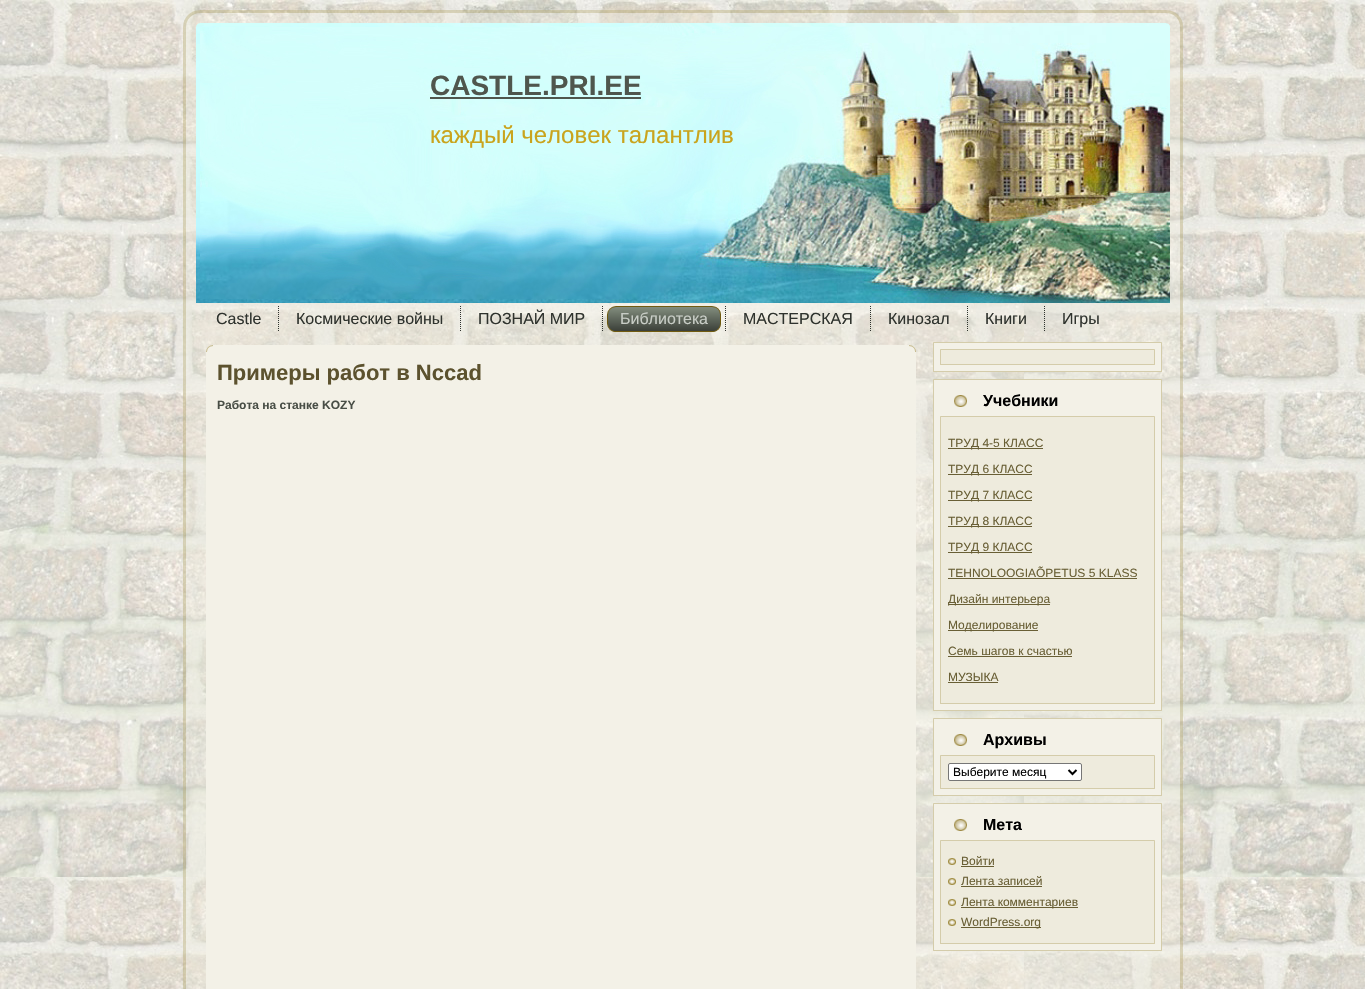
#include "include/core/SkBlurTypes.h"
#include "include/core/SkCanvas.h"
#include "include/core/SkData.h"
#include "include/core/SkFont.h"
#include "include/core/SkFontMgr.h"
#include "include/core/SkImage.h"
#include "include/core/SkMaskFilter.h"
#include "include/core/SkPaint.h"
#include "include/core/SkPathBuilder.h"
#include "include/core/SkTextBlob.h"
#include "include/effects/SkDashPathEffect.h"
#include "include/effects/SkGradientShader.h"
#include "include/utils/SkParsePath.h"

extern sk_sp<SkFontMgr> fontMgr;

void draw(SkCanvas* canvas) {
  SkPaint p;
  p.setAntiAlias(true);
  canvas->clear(SK_ColorWHITE);
  canvas->drawImageRect(SkImages::DeferredFromEncodedData(SkData::MakeFromFileName("images/1.png")), SkRect::MakeLTRB(0, 0, 1365, 989), SkSamplingOptions());
  canvas->drawImageRect(SkImages::DeferredFromEncodedData(SkData::MakeFromFileName("images/2.png")), SkRect::MakeLTRB(183, 10, 200, 27), SkSamplingOptions());
  canvas->drawImageRect(SkImages::DeferredFromEncodedData(SkData::MakeFromFileName("images/3.png")), SkRect::MakeLTRB(200, 10, 1166, 23), SkSamplingOptions());
  canvas->drawImageRect(SkImages::DeferredFromEncodedData(SkData::MakeFromFileName("images/4.png")), SkRect::MakeLTRB(1166, 10, 1183, 27), SkSamplingOptions());
  canvas->drawImageRect(SkImages::DeferredFromEncodedData(SkData::MakeFromFileName("images/5.png")), SkRect::MakeLTRB(183, 27, 200, 989), SkSamplingOptions());
  canvas->drawImageRect(SkImages::DeferredFromEncodedData(SkData::MakeFromFileName("images/21.png")), SkRect::MakeLTRB(1166, 27, 1183, 989), SkSamplingOptions());
  canvas->drawImageRect(SkImages::DeferredFromEncodedData(SkData::MakeFromFileName("images/6.png")), SkRect::MakeLTRB(196, 23, 1170, 303), SkSamplingOptions());
  canvas->drawImageRect(SkImages::DeferredFromEncodedData(SkData::MakeFromFileName("images/7.png")), SkRect::MakeLTRB(200, 27, 1166, 299), SkSamplingOptions());
  p.setColor(SkColorSetRGB(79, 86, 77));
  canvas->drawRect(SkRect::MakeLTRB(430, 97, 641, 99), p);
  p.setColor(SkColorSetARGB(102, 240, 237, 225));
  canvas->drawRect(SkRect::MakeLTRB(200, 303, 1166, 989), p);
  canvas->drawImageRect(SkImages::DeferredFromEncodedData(SkData::MakeFromFileName("images/8.png")), SkRect::MakeLTRB(278, 306, 279, 331), SkSamplingOptions());
  canvas->drawImageRect(SkImages::DeferredFromEncodedData(SkData::MakeFromFileName("images/9.png")), SkRect::MakeLTRB(460, 306, 461, 331), SkSamplingOptions());
  canvas->drawImageRect(SkImages::DeferredFromEncodedData(SkData::MakeFromFileName("images/10.png")), SkRect::MakeLTRB(602, 306, 603, 331), SkSamplingOptions());
  canvas->drawImageRect(SkImages::DeferredFromEncodedData(SkData::MakeFromFileName("images/11.png")), SkRect::MakeLTRB(607, 306, 712, 332), SkSamplingOptions());
  canvas->drawImageRect(SkImages::DeferredFromEncodedData(SkData::MakeFromFileName("images/12.png")), SkRect::MakeLTRB(712, 306, 721, 332), SkSamplingOptions());
  canvas->drawImageRect(SkImages::DeferredFromEncodedData(SkData::MakeFromFileName("images/13.png")), SkRect::MakeLTRB(725, 306, 726, 331), SkSamplingOptions());
  canvas->drawImageRect(SkImages::DeferredFromEncodedData(SkData::MakeFromFileName("images/14.png")), SkRect::MakeLTRB(870, 306, 871, 331), SkSamplingOptions());
  canvas->drawImageRect(SkImages::DeferredFromEncodedData(SkData::MakeFromFileName("images/15.png")), SkRect::MakeLTRB(967, 306, 968, 331), SkSamplingOptions());
  canvas->drawImageRect(SkImages::DeferredFromEncodedData(SkData::MakeFromFileName("images/16.png")), SkRect::MakeLTRB(1044, 306, 1045, 331), SkSamplingOptions());
  canvas->drawImageRect(SkImages::DeferredFromEncodedData(SkData::MakeFromFileName("images/17.png")), SkRect::MakeLTRB(206, 345, 213, 352), SkSamplingOptions());
  p.setColor(SkColorSetRGB(243, 241, 231));
  canvas->drawRect(SkRect::MakeLTRB(213, 345, 909, 352), p);
  canvas->drawImageRect(SkImages::DeferredFromEncodedData(SkData::MakeFromFileName("images/18.png")), SkRect::MakeLTRB(909, 345, 916, 352), SkSamplingOptions());
  canvas->drawRect(SkRect::MakeLTRB(206, 352, 213, 989), p);
  canvas->drawRect(SkRect::MakeLTRB(213, 352, 916, 989), p);
  p.setColor(SkColorSetRGB(217, 210, 180));
  canvas->drawRect(SkRect::MakeLTRB(933, 342, 934, 343), p);
  p.setColor(SkColorSetRGB(212, 204, 170));
  canvas->drawRect(SkRect::MakeLTRB(934, 342, 1161, 343), p);
  p.setColor(SkColorSetRGB(216, 210, 180));
  canvas->drawRect(SkRect::MakeLTRB(1161, 342, 1162, 343), p);
  p.setColor(SkColorSetRGB(212, 204, 170));
  canvas->drawRect(SkRect::MakeLTRB(933, 343, 934, 371), p);
  p.setColor(SkColorSetRGB(243, 241, 231));
  canvas->drawRect(SkRect::MakeLTRB(934, 343, 1161, 371), p);
  p.setColor(SkColorSetRGB(212, 204, 170));
  canvas->drawRect(SkRect::MakeLTRB(1161, 343, 1162, 371), p);
  p.setColor(SkColorSetRGB(217, 211, 180));
  canvas->drawRect(SkRect::MakeLTRB(940, 349, 941, 350), p);
  p.setColor(SkColorSetRGB(212, 204, 170));
  canvas->drawRect(SkRect::MakeLTRB(941, 349, 1154, 350), p);
  p.setColor(SkColorSetRGB(217, 211, 180));
  canvas->drawRect(SkRect::MakeLTRB(1154, 349, 1155, 350), p);
  p.setColor(SkColorSetRGB(212, 204, 170));
  canvas->drawRect(SkRect::MakeLTRB(940, 350, 941, 364), p);
  p.setColor(SkColorSetRGB(238, 235, 221));
  canvas->drawRect(SkRect::MakeLTRB(941, 350, 1154, 364), p);
  p.setColor(SkColorSetRGB(212, 204, 170));
  canvas->drawRect(SkRect::MakeLTRB(1154, 350, 1155, 364), p);
  p.setColor(SkColorSetRGB(215, 205, 171));
  canvas->drawRect(SkRect::MakeLTRB(940, 364, 941, 365), p);
  p.setColor(SkColorSetRGB(212, 204, 170));
  canvas->drawRect(SkRect::MakeLTRB(941, 364, 1154, 365), p);
  p.setColor(SkColorSetRGB(215, 205, 171));
  canvas->drawRect(SkRect::MakeLTRB(1154, 364, 1155, 365), p);
  p.setColor(SkColorSetRGB(214, 204, 173));
  canvas->drawRect(SkRect::MakeLTRB(933, 371, 934, 372), p);
  p.setColor(SkColorSetRGB(212, 204, 170));
  canvas->drawRect(SkRect::MakeLTRB(934, 371, 1161, 372), p);
  p.setColor(SkColorSetRGB(214, 205, 174));
  canvas->drawRect(SkRect::MakeLTRB(1161, 371, 1162, 372), p);
  p.setColor(SkColorSetRGB(214, 208, 179));
  canvas->drawRect(SkRect::MakeLTRB(933, 379, 934, 380), p);
  p.setColor(SkColorSetRGB(212, 204, 170));
  canvas->drawRect(SkRect::MakeLTRB(934, 379, 1161, 380), p);
  p.setColor(SkColorSetRGB(214, 208, 178));
  canvas->drawRect(SkRect::MakeLTRB(1161, 379, 1162, 380), p);
  p.setColor(SkColorSetRGB(212, 204, 170));
  canvas->drawRect(SkRect::MakeLTRB(933, 380, 934, 710), p);
  p.setColor(SkColorSetRGB(243, 241, 231));
  canvas->drawRect(SkRect::MakeLTRB(934, 380, 1161, 710), p);
  p.setColor(SkColorSetRGB(212, 204, 170));
  canvas->drawRect(SkRect::MakeLTRB(1161, 380, 1162, 710), p);
  canvas->drawImageRect(SkImages::DeferredFromEncodedData(SkData::MakeFromFileName("images/19.png")), SkRect::MakeLTRB(954, 395, 967, 407), SkSamplingOptions());
  p.setColor(SkColorSetRGB(217, 211, 180));
  canvas->drawRect(SkRect::MakeLTRB(940, 416, 941, 417), p);
  p.setColor(SkColorSetRGB(212, 204, 170));
  canvas->drawRect(SkRect::MakeLTRB(941, 416, 1154, 417), p);
  p.setColor(SkColorSetRGB(217, 211, 180));
  canvas->drawRect(SkRect::MakeLTRB(1154, 416, 1155, 417), p);
  p.setColor(SkColorSetRGB(212, 204, 170));
  canvas->drawRect(SkRect::MakeLTRB(940, 417, 941, 703), p);
  p.setColor(SkColorSetRGB(238, 235, 221));
  canvas->drawRect(SkRect::MakeLTRB(941, 417, 1154, 703), p);
  p.setColor(SkColorSetRGB(212, 204, 170));
  canvas->drawRect(SkRect::MakeLTRB(1154, 417, 1155, 703), p);
  p.setColor(SkColorSetRGB(105, 95, 53));
  canvas->drawRect(SkRect::MakeLTRB(948, 448, 1043, 449), p);
  canvas->drawRect(SkRect::MakeLTRB(948, 474, 1032, 475), p);
  canvas->drawRect(SkRect::MakeLTRB(948, 500, 1032, 501), p);
  canvas->drawRect(SkRect::MakeLTRB(948, 526, 1032, 527), p);
  canvas->drawRect(SkRect::MakeLTRB(948, 552, 1032, 553), p);
  canvas->drawRect(SkRect::MakeLTRB(948, 578, 1137, 579), p);
  canvas->drawRect(SkRect::MakeLTRB(948, 604, 1050, 605), p);
  canvas->drawRect(SkRect::MakeLTRB(948, 630, 1038, 631), p);
  canvas->drawRect(SkRect::MakeLTRB(948, 656, 1072, 657), p);
  canvas->drawRect(SkRect::MakeLTRB(948, 682, 998, 683), p);
  p.setColor(SkColorSetRGB(215, 205, 171));
  canvas->drawRect(SkRect::MakeLTRB(940, 703, 941, 704), p);
  p.setColor(SkColorSetRGB(212, 204, 170));
  canvas->drawRect(SkRect::MakeLTRB(941, 703, 1154, 704), p);
  p.setColor(SkColorSetRGB(215, 205, 171));
  canvas->drawRect(SkRect::MakeLTRB(1154, 703, 1155, 704), p);
  p.setColor(SkColorSetRGB(214, 204, 173));
  canvas->drawRect(SkRect::MakeLTRB(933, 710, 934, 711), p);
  p.setColor(SkColorSetRGB(212, 204, 170));
  canvas->drawRect(SkRect::MakeLTRB(934, 710, 1161, 711), p);
  p.setColor(SkColorSetRGB(214, 204, 173));
  canvas->drawRect(SkRect::MakeLTRB(1161, 710, 1162, 711), p);
  p.setColor(SkColorSetRGB(217, 210, 181));
  canvas->drawRect(SkRect::MakeLTRB(933, 718, 934, 719), p);
  p.setColor(SkColorSetRGB(212, 204, 170));
  canvas->drawRect(SkRect::MakeLTRB(934, 718, 1161, 719), p);
  p.setColor(SkColorSetRGB(216, 210, 180));
  canvas->drawRect(SkRect::MakeLTRB(1161, 718, 1162, 719), p);
  p.setColor(SkColorSetRGB(212, 204, 170));
  canvas->drawRect(SkRect::MakeLTRB(933, 719, 934, 795), p);
  p.setColor(SkColorSetRGB(243, 241, 231));
  canvas->drawRect(SkRect::MakeLTRB(934, 719, 1161, 795), p);
  p.setColor(SkColorSetRGB(212, 204, 170));
  canvas->drawRect(SkRect::MakeLTRB(1161, 719, 1162, 795), p);
  canvas->drawImageRect(SkImages::DeferredFromEncodedData(SkData::MakeFromFileName("images/19.png")), SkRect::MakeLTRB(954, 734, 967, 746), SkSamplingOptions());
  p.setColor(SkColorSetRGB(217, 211, 180));
  canvas->drawRect(SkRect::MakeLTRB(940, 755, 941, 756), p);
  p.setColor(SkColorSetRGB(212, 204, 170));
  canvas->drawRect(SkRect::MakeLTRB(941, 755, 1154, 756), p);
  p.setColor(SkColorSetRGB(217, 211, 180));
  canvas->drawRect(SkRect::MakeLTRB(1154, 755, 1155, 756), p);
  p.setColor(SkColorSetRGB(212, 204, 170));
  canvas->drawRect(SkRect::MakeLTRB(940, 756, 941, 788), p);
  p.setColor(SkColorSetRGB(238, 235, 221));
  canvas->drawRect(SkRect::MakeLTRB(941, 756, 1154, 788), p);
  p.setColor(SkColorSetRGB(212, 204, 170));
  canvas->drawRect(SkRect::MakeLTRB(1154, 756, 1155, 788), p);
  p.setColor(SK_ColorWHITE);
  canvas->drawRoundRect(SkRect::MakeLTRB(948.5f, 763.5f, 1081.5f, 780.5f), 1.5f, 1.5f, p);
  p.setStyle(SkPaint::kStroke_Style);
  p.setStrokeWidth(1);
  p.setColor(SkColorSetRGB(118, 118, 118));
  canvas->drawRoundRect(SkRect::MakeLTRB(948.5f, 763.5f, 1081.5f, 780.5f), 1.5f, 1.5f, p);
  p.setStrokeWidth(2);
  p.setColor(SK_ColorBLACK);
  canvas->drawPath(SkPathBuilder().moveTo(1068.5f, 770).lineTo(1072.5f, 774).lineTo(1076.5f, 770).detach(), p);
  p.setStyle(SkPaint::kFill_Style);
  p.setColor(SkColorSetRGB(215, 205, 171));
  canvas->drawRect(SkRect::MakeLTRB(940, 788, 941, 789), p);
  p.setColor(SkColorSetRGB(212, 204, 170));
  canvas->drawRect(SkRect::MakeLTRB(941, 788, 1154, 789), p);
  p.setColor(SkColorSetRGB(215, 205, 171));
  canvas->drawRect(SkRect::MakeLTRB(1154, 788, 1155, 789), p);
  p.setColor(SkColorSetRGB(214, 204, 173));
  canvas->drawRect(SkRect::MakeLTRB(933, 795, 934, 796), p);
  p.setColor(SkColorSetRGB(212, 204, 170));
  canvas->drawRect(SkRect::MakeLTRB(934, 795, 1161, 796), p);
  p.setColor(SkColorSetRGB(214, 205, 174));
  canvas->drawRect(SkRect::MakeLTRB(1161, 795, 1162, 796), p);
  p.setColor(SkColorSetRGB(217, 211, 181));
  canvas->drawRect(SkRect::MakeLTRB(933, 803, 934, 804), p);
  p.setColor(SkColorSetRGB(212, 204, 170));
  canvas->drawRect(SkRect::MakeLTRB(934, 803, 1161, 804), p);
  p.setColor(SkColorSetRGB(217, 210, 181));
  canvas->drawRect(SkRect::MakeLTRB(1161, 803, 1162, 804), p);
  p.setColor(SkColorSetRGB(212, 204, 170));
  canvas->drawRect(SkRect::MakeLTRB(933, 804, 934, 950), p);
  p.setColor(SkColorSetRGB(243, 241, 231));
  canvas->drawRect(SkRect::MakeLTRB(934, 804, 1161, 950), p);
  p.setColor(SkColorSetRGB(212, 204, 170));
  canvas->drawRect(SkRect::MakeLTRB(1161, 804, 1162, 950), p);
  canvas->drawImageRect(SkImages::DeferredFromEncodedData(SkData::MakeFromFileName("images/19.png")), SkRect::MakeLTRB(954, 819, 967, 831), SkSamplingOptions());
  p.setColor(SkColorSetRGB(217, 211, 180));
  canvas->drawRect(SkRect::MakeLTRB(940, 840, 941, 841), p);
  p.setColor(SkColorSetRGB(212, 204, 170));
  canvas->drawRect(SkRect::MakeLTRB(941, 840, 1154, 841), p);
  p.setColor(SkColorSetRGB(217, 211, 180));
  canvas->drawRect(SkRect::MakeLTRB(1154, 840, 1155, 841), p);
  p.setColor(SkColorSetRGB(212, 204, 170));
  canvas->drawRect(SkRect::MakeLTRB(940, 841, 941, 943), p);
  p.setColor(SkColorSetRGB(238, 235, 221));
  canvas->drawRect(SkRect::MakeLTRB(941, 841, 1154, 943), p);
  p.setColor(SkColorSetRGB(212, 204, 170));
  canvas->drawRect(SkRect::MakeLTRB(1154, 841, 1155, 943), p);
  canvas->drawImageRect(SkImages::DeferredFromEncodedData(SkData::MakeFromFileName("images/20.png")), SkRect::MakeLTRB(948, 858, 956, 865), SkSamplingOptions());
  p.setColor(SkColorSetRGB(105, 95, 53));
  canvas->drawRect(SkRect::MakeLTRB(961, 866, 994, 867), p);
  canvas->drawImageRect(SkImages::DeferredFromEncodedData(SkData::MakeFromFileName("images/20.png")), SkRect::MakeLTRB(948, 878, 956, 885), SkSamplingOptions());
  canvas->drawRect(SkRect::MakeLTRB(961, 886, 1042, 887), p);
  canvas->drawImageRect(SkImages::DeferredFromEncodedData(SkData::MakeFromFileName("images/20.png")), SkRect::MakeLTRB(948, 899, 956, 906), SkSamplingOptions());
  canvas->drawRect(SkRect::MakeLTRB(961, 907, 1078, 908), p);
  canvas->drawImageRect(SkImages::DeferredFromEncodedData(SkData::MakeFromFileName("images/20.png")), SkRect::MakeLTRB(948, 919, 956, 926), SkSamplingOptions());
  canvas->drawRect(SkRect::MakeLTRB(961, 927, 1041, 928), p);
  p.setColor(SkColorSetRGB(215, 205, 171));
  canvas->drawRect(SkRect::MakeLTRB(940, 943, 941, 944), p);
  p.setColor(SkColorSetRGB(212, 204, 170));
  canvas->drawRect(SkRect::MakeLTRB(941, 943, 1154, 944), p);
  p.setColor(SkColorSetRGB(215, 205, 171));
  canvas->drawRect(SkRect::MakeLTRB(1154, 943, 1155, 944), p);
  p.setColor(SkColorSetRGB(215, 205, 174));
  canvas->drawRect(SkRect::MakeLTRB(933, 950, 934, 951), p);
  p.setColor(SkColorSetRGB(212, 204, 170));
  canvas->drawRect(SkRect::MakeLTRB(934, 950, 1161, 951), p);
  p.setColor(SkColorSetRGB(214, 205, 174));
  canvas->drawRect(SkRect::MakeLTRB(1161, 950, 1162, 951), p);
  SkFont font1(fontMgr->matchFamilyStyle("Liberation Sans", SkFontStyle::Bold()), 28);
  font1.setSubpixel(true);
  p.setColor(SkColorSetRGB(79, 86, 77));
  canvas->drawString("CASTLE.PRI.EE", 430, 95, font1, p);
  SkFont font2(fontMgr->matchFamilyStyle("Liberation Sans", SkFontStyle::Normal()), 24);
  font2.setSubpixel(true);
  p.setColor(SkColorSetRGB(201, 164, 29));
  canvas->drawString("каждый человек талантлив", 430, 143, font2, p);
  SkFont font3(fontMgr->matchFamilyStyle("Liberation Sans", SkFontStyle::Normal()), 16);
  font3.setSubpixel(true);
  p.setColor(SkColorSetRGB(47, 51, 46));
  canvas->drawString("Castle", 216, 324, font3, p);
  canvas->drawString("Космические войны", 296, 324, font3, p);
  canvas->drawString("ПОЗНАЙ МИР", 478, 324, font3, p);
  p.setColor(SkColorSetRGB(200, 205, 198));
  canvas->drawString("Библиотека", 620, 324, font3, p);
  p.setColor(SkColorSetRGB(47, 51, 46));
  canvas->drawString("МАСТЕРСКАЯ", 743, 324, font3, p);
  canvas->drawString("Кинозал", 888, 324, font3, p);
  canvas->drawString("Книги", 985, 324, font3, p);
  canvas->drawString("Игры", 1062, 324, font3, p);
  SkFont font4(fontMgr->matchFamilyStyle("Liberation Sans", SkFontStyle::Bold()), 22);
  font4.setSubpixel(true);
  p.setColor(SkColorSetRGB(92, 82, 46));
  canvas->drawString("Примеры работ в Nccad", 217, 380, font4, p);
  SkFont font5(fontMgr->matchFamilyStyle("Liberation Sans", SkFontStyle::Bold()), 12);
  font5.setSubpixel(true);
  p.setColor(SkColorSetRGB(72, 78, 70));
  canvas->drawString("Работа на станке KOZY", 217, 409, font5, p);
  SkFont font6(fontMgr->matchFamilyStyle("Liberation Sans", SkFontStyle::Bold()), 16);
  font6.setSubpixel(true);
  p.setColor(SK_ColorBLACK);
  canvas->drawString("Учебники", 983, 406, font6, p);
  SkFont font7(fontMgr->matchFamilyStyle("Liberation Sans", SkFontStyle::Normal()), 12);
  font7.setSubpixel(true);
  p.setColor(SkColorSetRGB(105, 95, 53));
  canvas->drawString("ТРУД 4-5 КЛАСС", 948, 447, font7, p);
  canvas->drawString("ТРУД 6 КЛАСС", 948, 473, font7, p);
  canvas->drawString("ТРУД 7 КЛАСС", 948, 499, font7, p);
  canvas->drawString("ТРУД 8 КЛАСС", 948, 525, font7, p);
  canvas->drawString("ТРУД 9 КЛАСС", 948, 551, font7, p);
  canvas->drawString("TEHNOLOOGIAÕPETUS 5 KLASS", 948, 577, font7, p);
  canvas->drawString("Дизайн интерьера", 948, 603, font7, p);
  canvas->drawString("Моделирование", 948, 629, font7, p);
  canvas->drawString("Семь шагов к счастью", 948, 655, font7, p);
  canvas->drawString("МУЗЫКА", 948, 681, font7, p);
  p.setColor(SK_ColorBLACK);
  canvas->drawString("Архивы", 983, 745, font6, p);
  canvas->drawString("Выберите месяц", 953, 776, font7, p);
  canvas->drawString("Мета", 983, 830, font6, p);
  p.setColor(SkColorSetRGB(105, 95, 53));
  canvas->drawString("Войти", 961, 865, font7, p);
  canvas->drawString("Лента записей", 961, 885, font7, p);
  canvas->drawString("Лента комментариев", 961, 906, font7, p);
  canvas->drawString("WordPress.org", 961, 926, font7, p);
}
